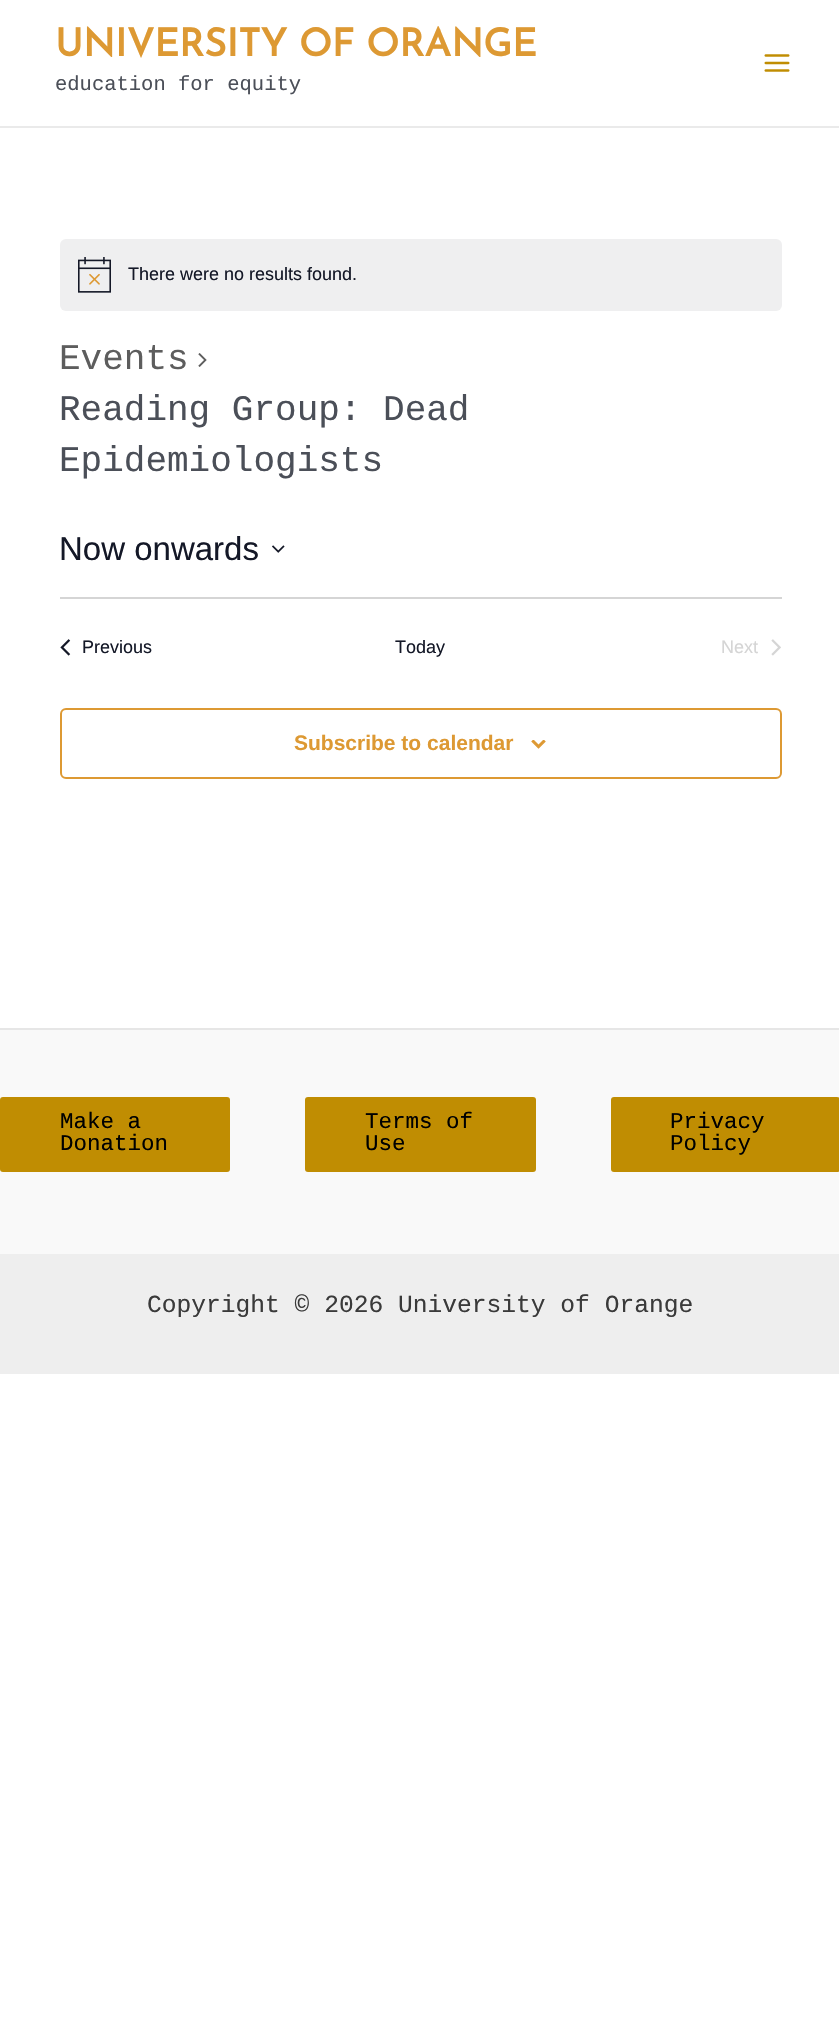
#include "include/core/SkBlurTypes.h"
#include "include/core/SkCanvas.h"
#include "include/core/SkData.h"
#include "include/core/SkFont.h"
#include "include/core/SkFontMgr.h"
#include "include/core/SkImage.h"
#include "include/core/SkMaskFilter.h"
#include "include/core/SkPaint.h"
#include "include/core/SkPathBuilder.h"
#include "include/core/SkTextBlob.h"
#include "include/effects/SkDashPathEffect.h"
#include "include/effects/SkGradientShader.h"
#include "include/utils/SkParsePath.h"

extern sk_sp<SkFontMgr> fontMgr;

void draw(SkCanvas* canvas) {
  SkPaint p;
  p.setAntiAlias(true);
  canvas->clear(SK_ColorWHITE);
  p.setColor(SkColorSetRGB(234, 234, 234));
  canvas->drawRect(SkRect::MakeLTRB(0, 126, 839, 128), p);
  canvas->drawImageRect(SkImages::DeferredFromEncodedData(SkData::MakeFromFileName("images/1.png")), SkRect::MakeLTRB(764, 54, 790, 72), SkSamplingOptions());
  p.setColor(SkColorSetRGB(239, 239, 240));
  canvas->drawRoundRect(SkRect::MakeLTRB(60, 239, 782, 311), 6, 6, p);
  canvas->drawImageRect(SkImages::DeferredFromEncodedData(SkData::MakeFromFileName("images/2.png")), SkRect::MakeLTRB(78, 257, 111, 293), SkSamplingOptions());
  canvas->drawImageRect(SkImages::DeferredFromEncodedData(SkData::MakeFromFileName("images/3.png")), SkRect::MakeLTRB(198, 353, 207, 367), SkSamplingOptions());
  canvas->drawImageRect(SkImages::DeferredFromEncodedData(SkData::MakeFromFileName("images/4.png")), SkRect::MakeLTRB(272, 545, 285, 553), SkSamplingOptions());
  p.setColor(SkColorSetRGB(213, 213, 213));
  canvas->drawRect(SkRect::MakeLTRB(60, 597, 782, 599), p);
  canvas->drawImageRect(SkImages::DeferredFromEncodedData(SkData::MakeFromFileName("images/5.png")), SkRect::MakeLTRB(60, 639, 71, 656), SkSamplingOptions());
  canvas->drawImageRect(SkImages::DeferredFromEncodedData(SkData::MakeFromFileName("images/6.png")), SkRect::MakeLTRB(771, 639, 781, 656), SkSamplingOptions());
  p.setStyle(SkPaint::kStroke_Style);
  p.setStrokeWidth(2);
  p.setColor(SkColorSetRGB(221, 153, 51));
  canvas->drawRoundRect(SkRect::MakeLTRB(61, 709, 781, 778), 5, 5, p);
  canvas->drawImageRect(SkImages::DeferredFromEncodedData(SkData::MakeFromFileName("images/7.png")), SkRect::MakeLTRB(531, 740, 546, 749), SkSamplingOptions());
  p.setStyle(SkPaint::kFill_Style);
  p.setColor(SkColorSetRGB(249, 249, 249));
  canvas->drawRect(SkRect::MakeLTRB(0, 1030, 839, 1254), p);
  p.setColor(SkColorSetRGB(230, 230, 230));
  canvas->drawRect(SkRect::MakeLTRB(0, 1028, 839, 1030), p);
  p.setColor(SkColorSetRGB(192, 141, 2));
  canvas->drawRoundRect(SkRect::MakeLTRB(0, 1097, 230, 1172), 3, 3, p);
  canvas->drawRoundRect(SkRect::MakeLTRB(305, 1097, 536, 1172), 3, 3, p);
  canvas->drawRoundRect(SkRect::MakeLTRB(611, 1097, 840, 1172), 3, 3, p);
  p.setColor(SkColorSetRGB(238, 238, 238));
  canvas->drawRect(SkRect::MakeLTRB(0, 1254, 839, 1374), p);
  SkFont font1(fontMgr->matchFamilyStyle("Josefin Sans", SkFontStyle::Bold()), 38.25f);
  font1.setSubpixel(true);
  p.setColor(SkColorSetRGB(221, 153, 51));
  canvas->drawString("UNIVERSITY OF ORANGE", 55, 56, font1, p);
  SkFont font2(fontMgr->matchFamilyStyle("Liberation Mono", SkFontStyle::Normal()), 20.5f);
  font2.setSubpixel(true);
  p.setColor(SkColorSetRGB(75, 79, 88));
  canvas->drawString("education for equity", 55, 90, font2, p);
  SkFont font3(fontMgr->matchFamilyStyle("Liberation Sans", SkFontStyle::Normal()), 18);
  font3.setSubpixel(true);
  p.setColor(SkColorSetRGB(20, 24, 39));
  canvas->drawString("There were no results found.", 128, 280, font3, p);
  SkFont font4(fontMgr->matchFamilyStyle("Liberation Mono", SkFontStyle::Normal()), 36);
  font4.setSubpixel(true);
  p.setColor(SkColorSetRGB(93, 93, 93));
  canvas->drawString("Events", 59, 369, font4, p);
  p.setColor(SkColorSetRGB(75, 79, 88));
  canvas->drawString("Reading Group: Dead", 59, 420, font4, p);
  canvas->drawString("Epidemiologists", 59, 471, font4, p);
  SkFont font5(fontMgr->matchFamilyStyle("Liberation Sans", SkFontStyle::Normal()), 33);
  font5.setSubpixel(true);
  p.setColor(SkColorSetRGB(20, 24, 39));
  canvas->drawString("Now onwards", 59, 560, font5, p);
  canvas->drawString("Previous", 82, 653, font3, p);
  canvas->drawString("Today", 395, 653, font3, p);
  p.setColor(SkColorSetRGB(213, 213, 213));
  canvas->drawString("Next", 721, 653, font3, p);
  SkFont font6(fontMgr->matchFamilyStyle("Liberation Sans", SkFontStyle::Bold()), 21);
  font6.setSubpixel(true);
  p.setColor(SkColorSetRGB(221, 153, 51));
  canvas->drawString("Subscribe to calendar", 294, 750, font6, p);
  SkFont font7(fontMgr->matchFamilyStyle("Liberation Mono", SkFontStyle::Normal()), 22.5f);
  font7.setSubpixel(true);
  p.setColor(SK_ColorBLACK);
  canvas->drawString("Make a", 60, 1128, font7, p);
  canvas->drawString("Donation", 60, 1150, font7, p);
  canvas->drawString("Terms of", 365, 1128, font7, p);
  canvas->drawString("Use", 365, 1150, font7, p);
  canvas->drawString("Privacy", 670, 1128, font7, p);
  canvas->drawString("Policy", 670, 1150, font7, p);
  SkFont font8(fontMgr->matchFamilyStyle("Liberation Mono", SkFontStyle::Normal()), 24.6f);
  font8.setSubpixel(true);
  p.setColor(SkColorSetRGB(58, 58, 58));
  canvas->drawString("Copyright © 2026 University of Orange", 147, 1312, font8, p);
}
